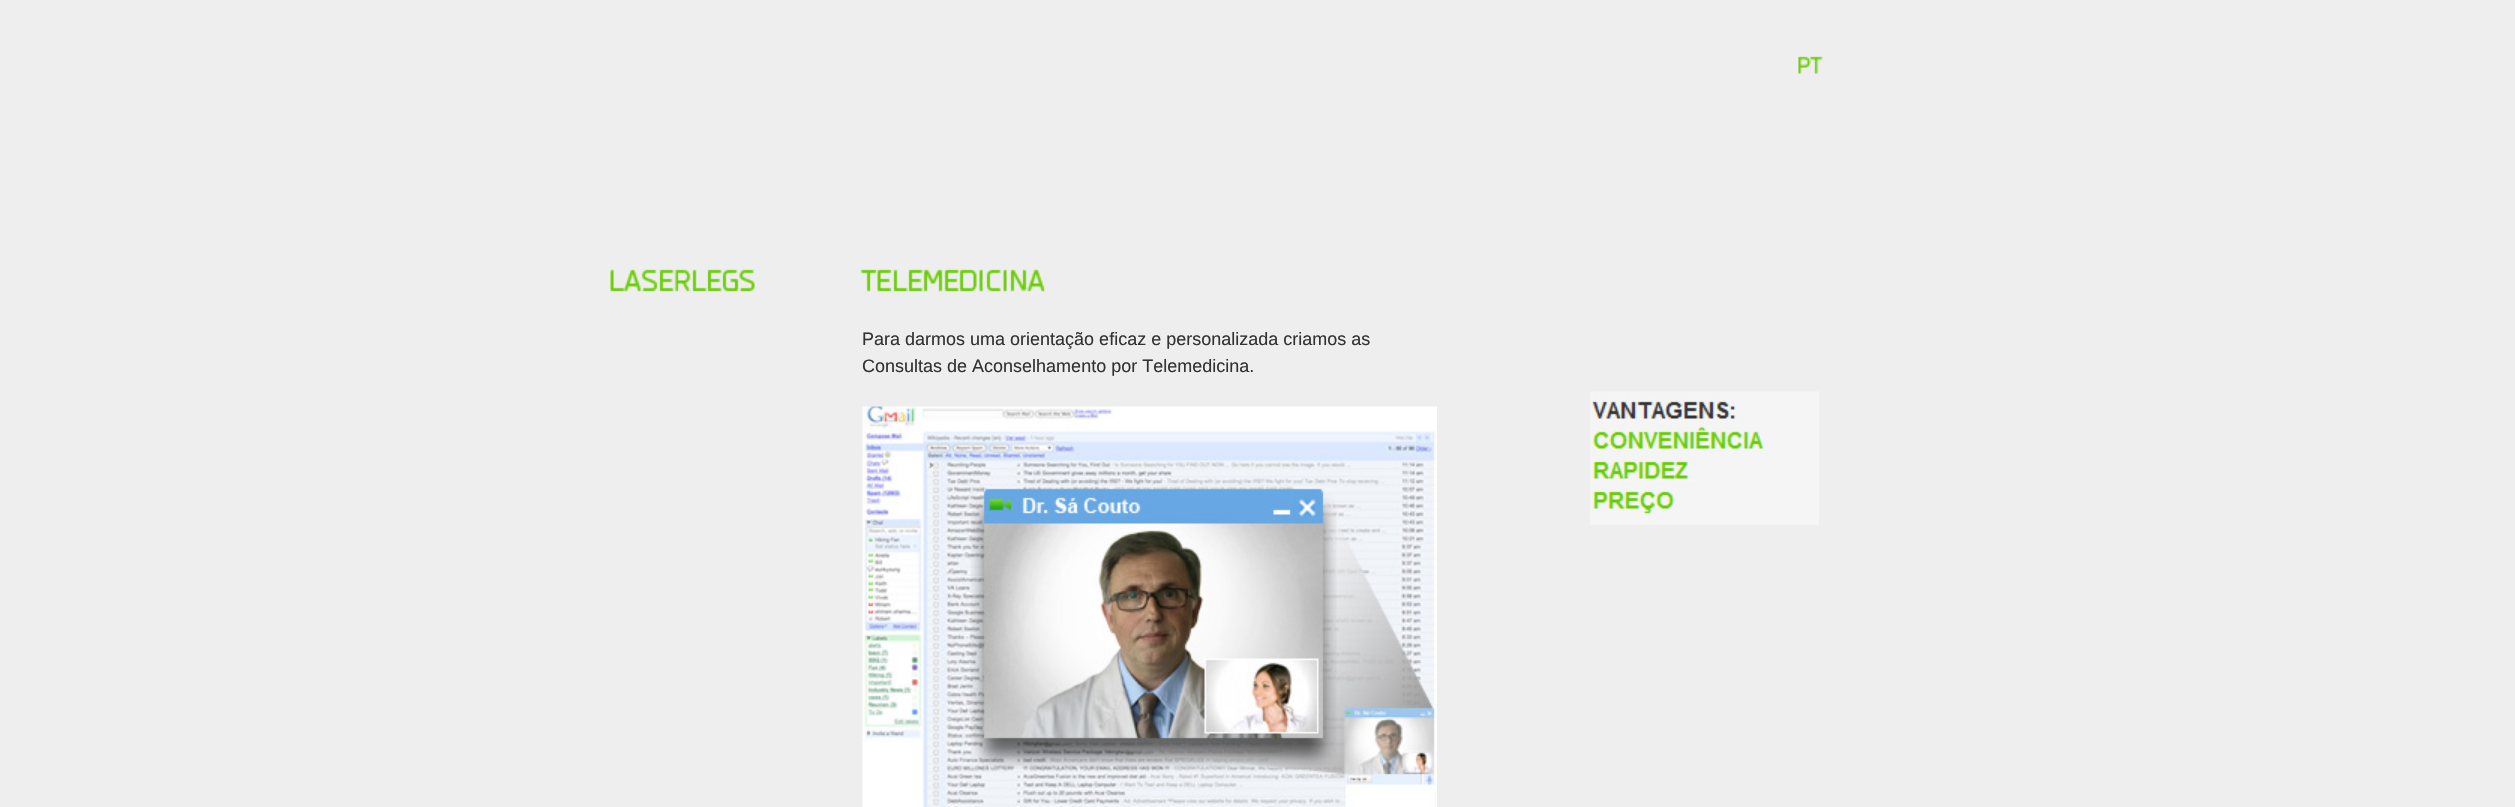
#include "include/core/SkBlurTypes.h"
#include "include/core/SkCanvas.h"
#include "include/core/SkData.h"
#include "include/core/SkFont.h"
#include "include/core/SkFontMgr.h"
#include "include/core/SkImage.h"
#include "include/core/SkMaskFilter.h"
#include "include/core/SkPaint.h"
#include "include/core/SkPathBuilder.h"
#include "include/core/SkTextBlob.h"
#include "include/effects/SkDashPathEffect.h"
#include "include/effects/SkGradientShader.h"
#include "include/utils/SkParsePath.h"

extern sk_sp<SkFontMgr> fontMgr;

void draw(SkCanvas* canvas) {
  SkPaint p;
  p.setAntiAlias(true);
  canvas->clear(SkColorSetRGB(238, 238, 238));
  canvas->drawImageRect(SkImages::DeferredFromEncodedData(SkData::MakeFromFileName("images/1.png")), SkRect::MakeLTRB(1798, 56, 1823, 74), SkSamplingOptions());
  canvas->drawImageRect(SkImages::DeferredFromEncodedData(SkData::MakeFromFileName("images/2.png")), SkRect::MakeLTRB(610, 269, 755, 292), SkSamplingOptions());
  canvas->drawImageRect(SkImages::DeferredFromEncodedData(SkData::MakeFromFileName("images/3.png")), SkRect::MakeLTRB(860, 269, 1046, 292), SkSamplingOptions());
  canvas->drawImageRect(SkImages::DeferredFromEncodedData(SkData::MakeFromFileName("images/4.png")), SkRect::MakeLTRB(862, 406, 1437, 807), SkSamplingOptions());
  canvas->drawImageRect(SkImages::DeferredFromEncodedData(SkData::MakeFromFileName("images/5.png")), SkRect::MakeLTRB(1590, 391, 1819, 525), SkSamplingOptions());
  SkFont font1(fontMgr->matchFamilyStyle("Liberation Sans", SkFontStyle::Normal()), 18);
  font1.setSubpixel(true);
  p.setColor(SkColorSetRGB(51, 51, 51));
  canvas->drawString("Para darmos uma orientação eficaz e personalizada criamos as", 862, 345, font1, p);
  canvas->drawString("Consultas de Aconselhamento por Telemedicina.", 862, 372, font1, p);
}
